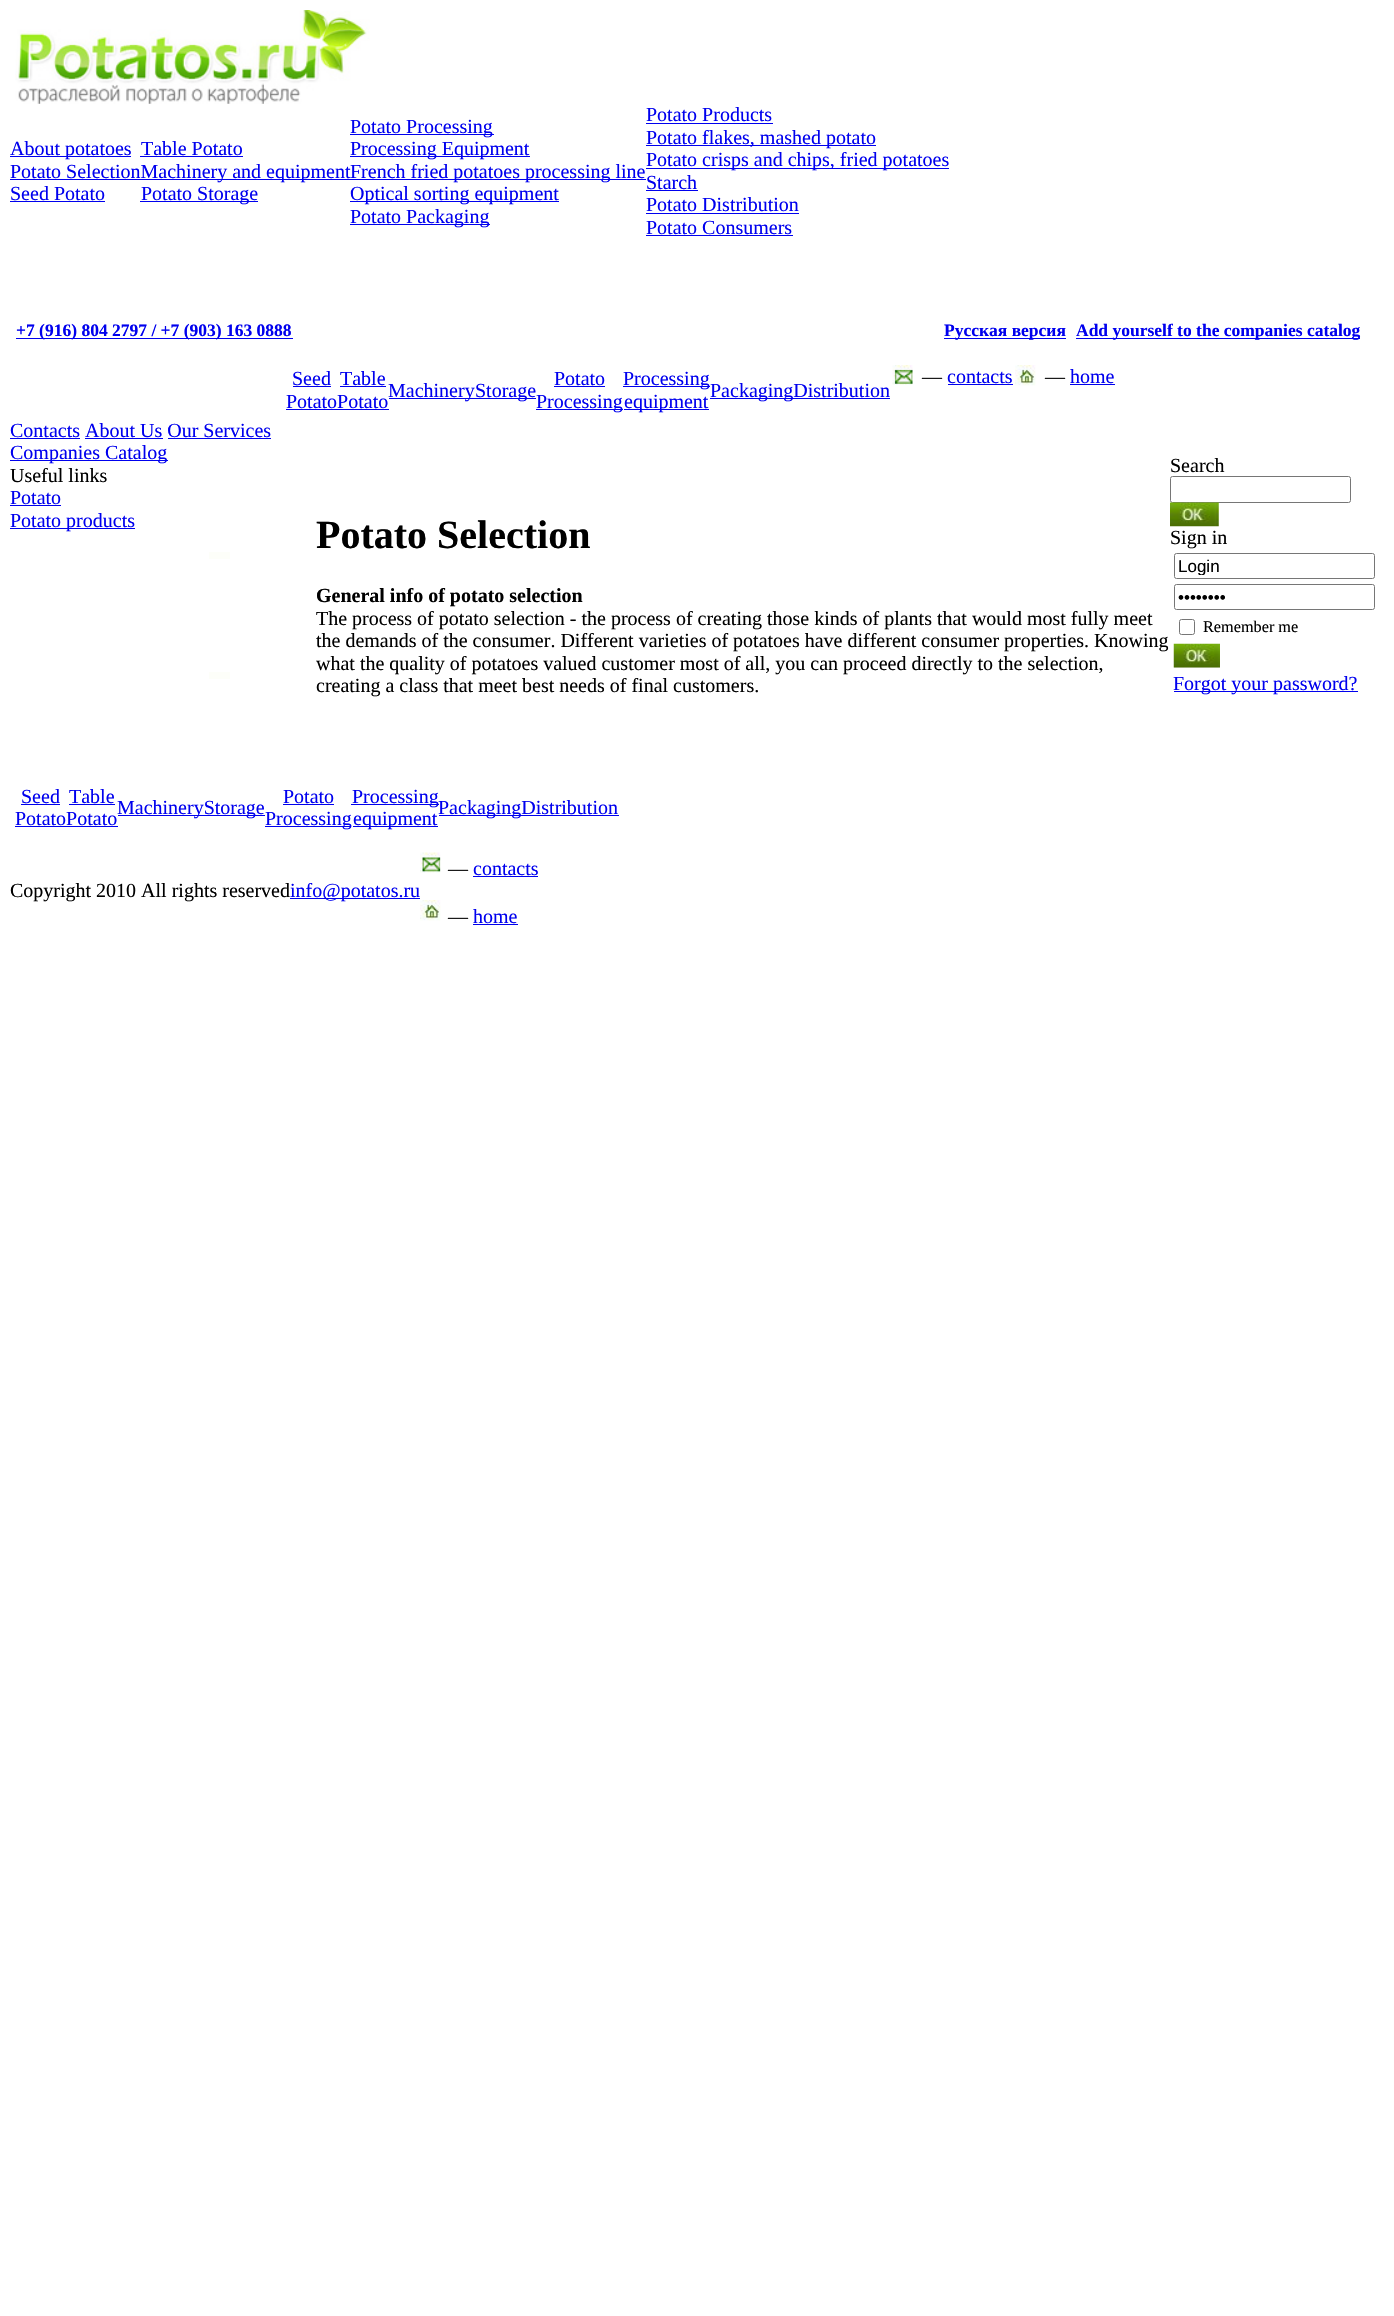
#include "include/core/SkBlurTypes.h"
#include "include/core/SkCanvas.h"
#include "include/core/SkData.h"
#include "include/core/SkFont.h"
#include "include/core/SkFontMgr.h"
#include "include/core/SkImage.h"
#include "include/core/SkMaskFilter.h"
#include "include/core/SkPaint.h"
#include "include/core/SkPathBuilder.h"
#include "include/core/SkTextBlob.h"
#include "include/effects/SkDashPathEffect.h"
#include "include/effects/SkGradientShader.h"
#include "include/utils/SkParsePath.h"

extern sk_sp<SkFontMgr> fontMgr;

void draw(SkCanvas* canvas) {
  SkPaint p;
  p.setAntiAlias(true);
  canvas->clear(SK_ColorWHITE);
  canvas->drawImageRect(SkImages::DeferredFromEncodedData(SkData::MakeFromFileName("images/1.png")), SkRect::MakeLTRB(15, 10, 370, 104), SkSamplingOptions());
  p.setColor(SkColorSetRGB(0, 0, 238));
  canvas->drawRect(SkRect::MakeLTRB(10, 156, 131, 157), p);
  canvas->drawRect(SkRect::MakeLTRB(10, 179, 350, 180), p);
  canvas->drawRect(SkRect::MakeLTRB(10, 201, 105, 202), p);
  canvas->drawRect(SkRect::MakeLTRB(350, 134, 494, 135), p);
  canvas->drawRect(SkRect::MakeLTRB(350, 156, 530, 157), p);
  canvas->drawRect(SkRect::MakeLTRB(350, 179, 646, 180), p);
  canvas->drawRect(SkRect::MakeLTRB(350, 201, 559, 202), p);
  canvas->drawRect(SkRect::MakeLTRB(350, 224, 490, 225), p);
  canvas->drawRect(SkRect::MakeLTRB(646, 123, 773, 124), p);
  canvas->drawRect(SkRect::MakeLTRB(646, 145, 876, 146), p);
  canvas->drawRect(SkRect::MakeLTRB(646, 168, 949, 169), p);
  canvas->drawRect(SkRect::MakeLTRB(646, 190, 698, 191), p);
  canvas->drawRect(SkRect::MakeLTRB(646, 213, 799, 214), p);
  canvas->drawRect(SkRect::MakeLTRB(646, 235, 793, 236), p);
  canvas->drawRect(SkRect::MakeLTRB(140, 156, 243, 157), p);
  canvas->drawRect(SkRect::MakeLTRB(140, 201, 258, 202), p);
  canvas->drawRect(SkRect::MakeLTRB(16, 338, 293, 339), p);
  canvas->drawRect(SkRect::MakeLTRB(944, 338, 1066, 339), p);
  canvas->drawRect(SkRect::MakeLTRB(1076, 338, 1360, 339), p);
  canvas->drawRect(SkRect::MakeLTRB(293, 386, 331, 387), p);
  canvas->drawRect(SkRect::MakeLTRB(286, 409, 389, 410), p);
  canvas->drawRect(SkRect::MakeLTRB(340, 386, 386, 387), p);
  canvas->drawRect(SkRect::MakeLTRB(389, 398, 475, 399), p);
  canvas->drawRect(SkRect::MakeLTRB(475, 398, 536, 399), p);
  canvas->drawRect(SkRect::MakeLTRB(554, 386, 605, 387), p);
  canvas->drawRect(SkRect::MakeLTRB(536, 409, 623, 410), p);
  canvas->drawRect(SkRect::MakeLTRB(623, 386, 710, 387), p);
  canvas->drawRect(SkRect::MakeLTRB(624, 409, 709, 410), p);
  canvas->drawRect(SkRect::MakeLTRB(710, 398, 890, 399), p);
  canvas->drawImageRect(SkImages::DeferredFromEncodedData(SkData::MakeFromFileName("images/2.png")), SkRect::MakeLTRB(892, 365, 913, 385), SkSamplingOptions());
  canvas->drawRect(SkRect::MakeLTRB(948, 384, 1013, 385), p);
  canvas->drawImageRect(SkImages::DeferredFromEncodedData(SkData::MakeFromFileName("images/3.png")), SkRect::MakeLTRB(1015, 365, 1036, 386), SkSamplingOptions());
  canvas->drawRect(SkRect::MakeLTRB(1070, 384, 1115, 385), p);
  canvas->drawRect(SkRect::MakeLTRB(10, 438, 80, 439), p);
  canvas->drawRect(SkRect::MakeLTRB(85, 438, 163, 439), p);
  canvas->drawRect(SkRect::MakeLTRB(168, 438, 271, 439), p);
  canvas->drawRect(SkRect::MakeLTRB(10, 460, 168, 461), p);
  canvas->drawRect(SkRect::MakeLTRB(10, 505, 61, 506), p);
  canvas->drawRect(SkRect::MakeLTRB(10, 528, 135, 529), p);
  p.setColor(SkColorSetRGB(253, 254, 249));
  canvas->drawRect(SkRect::MakeLTRB(209, 552, 230, 559), p);
  canvas->drawRect(SkRect::MakeLTRB(209, 672, 230, 679), p);
  p.setStyle(SkPaint::kStroke_Style);
  p.setStrokeWidth(1);
  p.setColor(SkColorSetRGB(118, 118, 118));
  canvas->drawRoundRect(SkRect::MakeLTRB(1170.5f, 476.5f, 1350.5f, 502.5f), 2, 2, p);
  canvas->drawImageRect(SkImages::DeferredFromEncodedData(SkData::MakeFromFileName("images/4.png")), SkRect::MakeLTRB(1170, 502, 1219, 527), SkSamplingOptions());
  canvas->drawRoundRect(SkRect::MakeLTRB(1174.5f, 553.5f, 1374.5f, 578.5f), 2, 2, p);
  canvas->drawRoundRect(SkRect::MakeLTRB(1174.5f, 584.5f, 1374.5f, 609.5f), 2, 2, p);
  canvas->drawRoundRect(SkRect::MakeLTRB(1179.5f, 619.5f, 1194.5f, 634.5f), 2, 2, p);
  p.setStyle(SkPaint::kFill_Style);
  p.setColor(SkColorSetRGB(239, 239, 239));
  canvas->drawRect(SkRect::MakeLTRB(1174, 667, 1220, 668), p);
  canvas->drawImageRect(SkImages::DeferredFromEncodedData(SkData::MakeFromFileName("images/5.png")), SkRect::MakeLTRB(1173, 643, 1220, 668), SkSamplingOptions());
  p.setColor(SkColorSetRGB(0, 0, 238));
  canvas->drawRect(SkRect::MakeLTRB(1174, 691, 1358, 692), p);
  canvas->drawRect(SkRect::MakeLTRB(21, 804, 60, 805), p);
  canvas->drawRect(SkRect::MakeLTRB(15, 826, 118, 827), p);
  canvas->drawRect(SkRect::MakeLTRB(69, 804, 115, 805), p);
  canvas->drawRect(SkRect::MakeLTRB(118, 815, 265, 816), p);
  canvas->drawRect(SkRect::MakeLTRB(283, 804, 334, 805), p);
  canvas->drawRect(SkRect::MakeLTRB(265, 826, 351, 827), p);
  canvas->drawRect(SkRect::MakeLTRB(351, 804, 439, 805), p);
  canvas->drawRect(SkRect::MakeLTRB(353, 826, 438, 827), p);
  canvas->drawRect(SkRect::MakeLTRB(439, 815, 521, 816), p);
  canvas->drawRect(SkRect::MakeLTRB(521, 815, 619, 816), p);
  canvas->drawRect(SkRect::MakeLTRB(290, 898, 420, 899), p);
  canvas->drawImageRect(SkImages::DeferredFromEncodedData(SkData::MakeFromFileName("images/6.png")), SkRect::MakeLTRB(420, 852, 441, 873), SkSamplingOptions());
  canvas->drawRect(SkRect::MakeLTRB(473, 876, 538, 877), p);
  canvas->drawImageRect(SkImages::DeferredFromEncodedData(SkData::MakeFromFileName("images/7.png")), SkRect::MakeLTRB(420, 900, 441, 921), SkSamplingOptions());
  canvas->drawRect(SkRect::MakeLTRB(473, 924, 518, 925), p);
  SkFont font1(fontMgr->matchFamilyStyle("Liberation Serif", SkFontStyle::Normal()), 20);
  font1.setSubpixel(true);
  canvas->drawString("About potatoes", 10, 155, font1, p);
  canvas->drawString("Potato SelectionMachinery and equipment", 10, 178, font1, p);
  canvas->drawString("Seed Potato", 10, 200, font1, p);
  canvas->drawString("Potato Processing", 350, 133, font1, p);
  canvas->drawString("Processing Equipment", 350, 155, font1, p);
  canvas->drawString("French fried potatoes processing line", 350, 178, font1, p);
  canvas->drawString("Optical sorting equipment", 350, 200, font1, p);
  canvas->drawString("Potato Packaging", 350, 223, font1, p);
  canvas->drawString("Potato Products", 646, 121, font1, p);
  canvas->drawString("Potato flakes, mashed potato", 646, 144, font1, p);
  canvas->drawString("Potato crisps and chips, fried potatoes", 646, 166, font1, p);
  canvas->drawString("Starch", 646, 189, font1, p);
  canvas->drawString("Potato Distribution", 646, 211, font1, p);
  canvas->drawString("Potato Consumers", 646, 234, font1, p);
  canvas->drawString("Table Potato", 141, 155, font1, p);
  canvas->drawString("Potato Storage", 141, 200, font1, p);
  SkFont font2(fontMgr->matchFamilyStyle("Liberation Serif", SkFontStyle::Bold()), 17.5f);
  font2.setSubpixel(true);
  canvas->drawString("+7 (916) 804 2797 / +7 (903) 163 0888", 16, 336, font2, p);
  canvas->drawString("Русская версия", 944, 336, font2, p);
  canvas->drawString("Add yourself to the companies catalog", 1076, 336, font2, p);
  canvas->drawString("Seed", 292, 385, font1, p);
  canvas->drawString("PotatoPotato", 286, 408, font1, p);
  canvas->drawString("Table", 340, 385, font1, p);
  canvas->drawString("Machinery", 388, 397, font1, p);
  canvas->drawString("Storage", 475, 397, font1, p);
  canvas->drawString("Potato", 554, 385, font1, p);
  canvas->drawString("Processing", 536, 408, font1, p);
  canvas->drawString("Processing", 623, 385, font1, p);
  canvas->drawString("equipment", 624, 408, font1, p);
  canvas->drawString("PackagingDistribution", 710, 397, font1, p);
  p.setColor(SK_ColorBLACK);
  canvas->drawString("—", 922, 383, font1, p);
  p.setColor(SkColorSetRGB(0, 0, 238));
  canvas->drawString("contacts", 947, 383, font1, p);
  p.setColor(SK_ColorBLACK);
  canvas->drawString("—", 1045, 383, font1, p);
  p.setColor(SkColorSetRGB(0, 0, 238));
  canvas->drawString("home", 1070, 383, font1, p);
  canvas->drawString("Contacts About Us Our Services", 10, 437, font1, p);
  canvas->drawString("Companies Catalog", 10, 459, font1, p);
  p.setColor(SK_ColorBLACK);
  canvas->drawString("Useful links", 10, 482, font1, p);
  p.setColor(SkColorSetRGB(0, 0, 238));
  canvas->drawString("Potato", 10, 504, font1, p);
  canvas->drawString("Potato products", 10, 527, font1, p);
  SkFont font3(fontMgr->matchFamilyStyle("Liberation Serif", SkFontStyle::Bold()), 40);
  font3.setSubpixel(true);
  p.setColor(SK_ColorBLACK);
  canvas->drawString("Potato Selection", 316, 548, font3, p);
  SkFont font4(fontMgr->matchFamilyStyle("Liberation Serif", SkFontStyle::Bold()), 20);
  font4.setSubpixel(true);
  canvas->drawString("General info of potato selection", 316, 602, font4, p);
  canvas->drawString("The process of potato selection - the process of creating those kinds of plants that would most fully meet", 316, 625, font1, p);
  canvas->drawString("the demands of the consumer. Different varieties of potatoes have different consumer properties. Knowing", 316, 647, font1, p);
  canvas->drawString("what the quality of potatoes valued customer most of all, you can proceed directly to the selection,", 316, 670, font1, p);
  canvas->drawString("creating a class that meet best needs of final customers.", 316, 692, font1, p);
  canvas->drawString("Search", 1170, 472, font1, p);
  canvas->drawString("Sign in", 1170, 544, font1, p);
  canvas->save();
  canvas->clipRect(SkRect::MakeLTRB(1179, 556, 1370, 575));
  SkFont font5(fontMgr->matchFamilyStyle("Liberation Sans", SkFontStyle::Normal()), 17);
  font5.setSubpixel(true);
  canvas->drawString("Login", 1178, 572, font5, p);
  canvas->restore();
  canvas->drawString("••••••••", 1178, 603, font5, p);
  SkFont font6(fontMgr->matchFamilyStyle("Liberation Serif", SkFontStyle::Normal()), 16.25f);
  font6.setSubpixel(true);
  canvas->drawString("Remember me", 1203, 632, font6, p);
  p.setColor(SkColorSetRGB(0, 0, 238));
  canvas->drawString("Forgot your password?", 1173, 690, font1, p);
  canvas->drawString("Seed", 21, 803, font1, p);
  canvas->drawString("PotatoPotato", 15, 825, font1, p);
  canvas->drawString("Table", 69, 803, font1, p);
  canvas->drawString("MachineryStorage", 117, 814, font1, p);
  canvas->drawString("Potato", 283, 803, font1, p);
  canvas->drawString("Processing", 265, 825, font1, p);
  canvas->drawString("Processing", 352, 803, font1, p);
  canvas->drawString("equipment", 353, 825, font1, p);
  canvas->drawString("PackagingDistribution", 438, 814, font1, p);
  p.setColor(SK_ColorBLACK);
  canvas->drawString("Copyright 2010 All rights reserved", 10, 897, font1, p);
  p.setColor(SkColorSetRGB(0, 0, 238));
  canvas->drawString("info@potatos.ru", 290, 897, font1, p);
  p.setColor(SK_ColorBLACK);
  canvas->drawString("—", 448, 875, font1, p);
  p.setColor(SkColorSetRGB(0, 0, 238));
  canvas->drawString("contacts", 473, 875, font1, p);
  p.setColor(SK_ColorBLACK);
  canvas->drawString("—", 448, 923, font1, p);
  p.setColor(SkColorSetRGB(0, 0, 238));
  canvas->drawString("home", 473, 923, font1, p);
}
